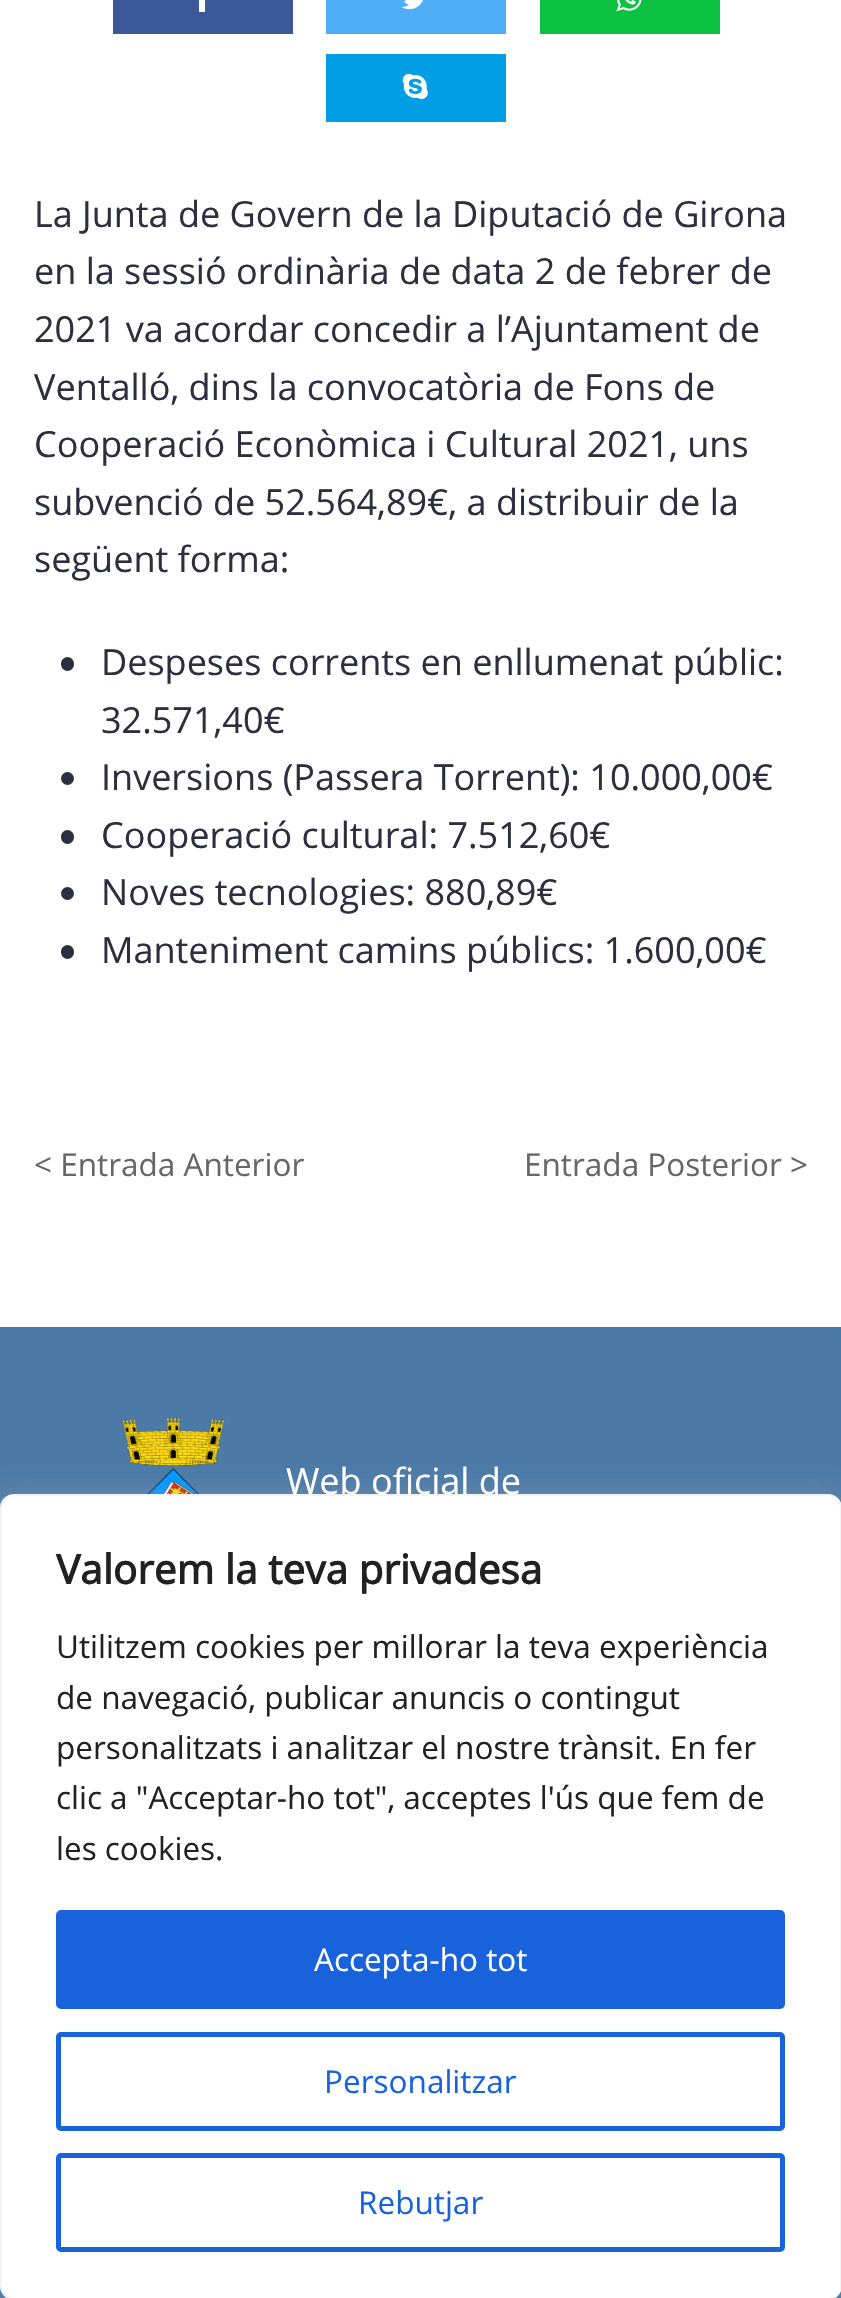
#include "include/core/SkBlurTypes.h"
#include "include/core/SkCanvas.h"
#include "include/core/SkData.h"
#include "include/core/SkFont.h"
#include "include/core/SkFontMgr.h"
#include "include/core/SkImage.h"
#include "include/core/SkMaskFilter.h"
#include "include/core/SkPaint.h"
#include "include/core/SkPathBuilder.h"
#include "include/core/SkTextBlob.h"
#include "include/effects/SkDashPathEffect.h"
#include "include/effects/SkGradientShader.h"
#include "include/utils/SkParsePath.h"

extern sk_sp<SkFontMgr> fontMgr;

void draw(SkCanvas* canvas) {
  SkPaint p;
  p.setAntiAlias(true);
  canvas->clear(SK_ColorWHITE);
  p.setColor(SkColorSetRGB(59, 89, 152));
  canvas->drawRect(SkRect::MakeLTRB(113, 0, 293, 34), p);
  p.setColor(SK_ColorWHITE);
  canvas->drawRect(SkRect::MakeLTRB(199, 0, 205, 12), p);
  p.setColor(SkColorSetRGB(78, 174, 248));
  canvas->drawRect(SkRect::MakeLTRB(326, 0, 506, 34), p);
  canvas->drawImageRect(SkImages::DeferredFromEncodedData(SkData::MakeFromFileName("images/1.png")), SkRect::MakeLTRB(401, 0, 423, 10), SkSamplingOptions());
  p.setColor(SkColorSetRGB(13, 193, 67));
  canvas->drawRect(SkRect::MakeLTRB(540, 0, 720, 34), p);
  canvas->drawImageRect(SkImages::DeferredFromEncodedData(SkData::MakeFromFileName("images/2.png")), SkRect::MakeLTRB(616, 0, 642, 12), SkSamplingOptions());
  p.setColor(SkColorSetRGB(0, 158, 229));
  canvas->drawRect(SkRect::MakeLTRB(326, 54, 506, 122), p);
  canvas->drawImageRect(SkImages::DeferredFromEncodedData(SkData::MakeFromFileName("images/3.png")), SkRect::MakeLTRB(402, 73, 428, 99), SkSamplingOptions());
  p.setColor(SkColorSetRGB(45, 46, 64));
  canvas->drawRoundRect(SkRect::MakeLTRB(61, 657, 74, 671), 6.5f, 6.5f, p);
  canvas->drawCircle(67.5f, 778.5f, 6.5f, p);
  canvas->drawRoundRect(SkRect::MakeLTRB(61, 830, 74, 844), 6.5f, 6.5f, p);
  canvas->drawCircle(67.5f, 893.5f, 6.5f, p);
  canvas->drawRoundRect(SkRect::MakeLTRB(61, 945, 74, 959), 6.5f, 6.5f, p);
  p.setColor(SkColorSetRGB(76, 122, 167));
  canvas->drawRect(SkRect::MakeLTRB(0, 1327, 841, 2298), p);
  canvas->drawImageRect(SkImages::DeferredFromEncodedData(SkData::MakeFromFileName("images/4.png")), SkRect::MakeLTRB(122, 1417, 225, 1494), SkSamplingOptions());
  p.setColor(SkColorSetARGB(77, 172, 171, 171));
  p.setMaskFilter(SkMaskFilter::MakeBlur(kNormal_SkBlurStyle, 11));
  canvas->drawRoundRect(SkRect::MakeLTRB(0, 1492, 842, 2297), 14, 14, p);
  p.setMaskFilter(nullptr);
  p.setColor(SK_ColorWHITE);
  canvas->drawRoundRect(SkRect::MakeLTRB(1, 1495, 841, 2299), 13, 13, p);
  p.setStyle(SkPaint::kStroke_Style);
  p.setStrokeWidth(2);
  p.setColor(SkColorSetRGB(244, 244, 244));
  canvas->drawRoundRect(SkRect::MakeLTRB(1, 1495, 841, 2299), 13, 13, p);
  p.setStyle(SkPaint::kFill_Style);
  p.setColor(SkColorSetRGB(24, 99, 220));
  canvas->drawRoundRect(SkRect::MakeLTRB(58.5f, 1912.5f, 782.5f, 2006.5f), 2.5f, 2.5f, p);
  p.setStyle(SkPaint::kStroke_Style);
  p.setStrokeWidth(5);
  canvas->drawRoundRect(SkRect::MakeLTRB(58.5f, 1912.5f, 782.5f, 2006.5f), 2.5f, 2.5f, p);
  canvas->drawRoundRect(SkRect::MakeLTRB(58.5f, 2034.5f, 782.5f, 2128.5f), 2.5f, 2.5f, p);
  canvas->drawRoundRect(SkRect::MakeLTRB(58.5f, 2155.5f, 782.5f, 2249.5f), 2.5f, 2.5f, p);
  SkFont font1(fontMgr->matchFamilyStyle("Open Sans", SkFontStyle::Normal()), 36);
  font1.setSubpixel(true);
  p.setStyle(SkPaint::kFill_Style);
  p.setColor(SkColorSetRGB(45, 46, 64));
  canvas->drawString("La Junta de Govern de la Diputació de Girona", 34, 227, font1, p);
  canvas->drawString("en la sessió ordinària de data 2 de febrer de", 34, 284, font1, p);
  canvas->drawString("2021 va acordar concedir a l’Ajuntament de", 34, 342, font1, p);
  canvas->drawString("Ventalló, dins la convocatòria de Fons de", 34, 400, font1, p);
  canvas->drawString("Cooperació Econòmica i Cultural 2021, uns", 34, 457, font1, p);
  canvas->drawString("subvenció de 52.564,89€, a distribuir de la", 34, 515, font1, p);
  canvas->drawString("següent forma:", 34, 572, font1, p);
  canvas->drawString("Despeses corrents en enllumenat públic:", 101, 675, font1, p);
  canvas->drawString("32.571,40€", 101, 733, font1, p);
  canvas->drawString("Inversions (Passera Torrent): 10.000,00€", 101, 790, font1, p);
  canvas->drawString("Cooperació cultural: 7.512,60€", 101, 848, font1, p);
  canvas->drawString("Noves tecnologies: 880,89€", 101, 905, font1, p);
  canvas->drawString("Manteniment camins públics: 1.600,00€", 101, 963, font1, p);
  SkFont font2(fontMgr->matchFamilyStyle("Open Sans", SkFontStyle::Normal()), 31.5f);
  font2.setSubpixel(true);
  p.setColor(SkColorSetRGB(103, 103, 103));
  canvas->drawString("< Entrada Anterior", 34, 1176, font2, p);
  canvas->drawString("Entrada Posterior >", 524, 1176, font2, p);
  p.setColor(SK_ColorWHITE);
  canvas->drawString("Web oficial de", 286, 1494, font1, p);
  SkFont font3(fontMgr->matchFamilyStyle("Open Sans", SkFontStyle::Bold()), 40.5f);
  font3.setSubpixel(true);
  p.setColor(SkColorSetRGB(33, 33, 33));
  canvas->drawString("Valorem la teva privadesa", 56, 1584, font3, p);
  canvas->drawString("Utilitzem cookies per millorar la teva experiència", 56, 1658, font2, p);
  canvas->drawString("de navegació, publicar anuncis o contingut", 56, 1709, font2, p);
  canvas->drawString("personalitzats i analitzar el nostre trànsit. En fer", 56, 1759, font2, p);
  canvas->drawString("clic a \"Acceptar-ho tot\", acceptes l'ús que fem de", 56, 1809, font2, p);
  canvas->drawString("les cookies.", 56, 1860, font2, p);
  p.setColor(SK_ColorWHITE);
  canvas->drawString("Accepta-ho tot", 314, 1971, font2, p);
  p.setColor(SkColorSetRGB(24, 99, 220));
  canvas->drawString("Personalitzar", 324, 2093, font2, p);
  canvas->drawString("Rebutjar", 358, 2214, font2, p);
}
